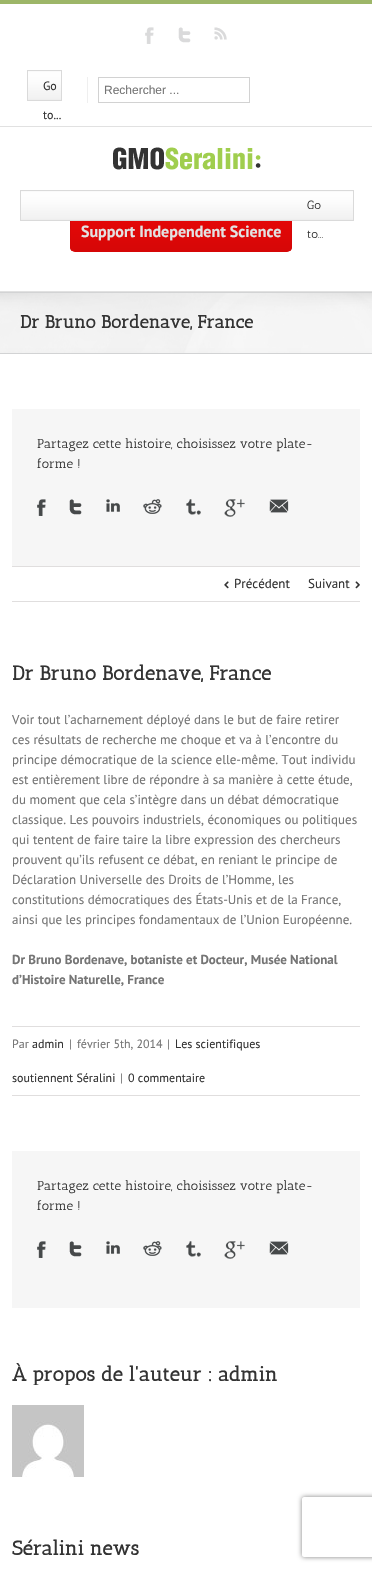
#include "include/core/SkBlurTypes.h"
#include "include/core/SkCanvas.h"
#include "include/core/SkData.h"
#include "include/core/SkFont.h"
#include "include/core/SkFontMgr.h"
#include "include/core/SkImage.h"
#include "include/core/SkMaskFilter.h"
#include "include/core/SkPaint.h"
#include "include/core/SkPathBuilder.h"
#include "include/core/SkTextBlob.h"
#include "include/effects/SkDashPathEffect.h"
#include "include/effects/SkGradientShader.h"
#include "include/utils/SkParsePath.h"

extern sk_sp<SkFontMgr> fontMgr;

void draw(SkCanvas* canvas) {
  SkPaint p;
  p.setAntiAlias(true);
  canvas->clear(SK_ColorWHITE);
  p.setColor(SkColorSetRGB(157, 182, 104));
  canvas->drawRect(SkRect::MakeLTRB(0, 0, 372, 4), p);
  p.setColor(SkColorSetRGB(225, 225, 225));
  canvas->drawRect(SkRect::MakeLTRB(0, 126, 372, 127), p);
  canvas->drawImageRect(SkImages::DeferredFromEncodedData(SkData::MakeFromFileName("images/1.png")), SkRect::MakeLTRB(145, 27, 154, 44), SkSamplingOptions());
  canvas->drawImageRect(SkImages::DeferredFromEncodedData(SkData::MakeFromFileName("images/2.png")), SkRect::MakeLTRB(178, 27, 191, 43), SkSamplingOptions());
  canvas->drawImageRect(SkImages::DeferredFromEncodedData(SkData::MakeFromFileName("images/3.png")), SkRect::MakeLTRB(214, 27, 227, 40), SkSamplingOptions());
  canvas->drawImageRect(SkImages::DeferredFromEncodedData(SkData::MakeFromFileName("images/4.png")), SkRect::MakeLTRB(28, 71, 61, 100), SkSamplingOptions());
  p.setStyle(SkPaint::kStroke_Style);
  p.setStrokeWidth(1);
  p.setColor(SkColorSetRGB(218, 218, 218));
  canvas->drawRect(SkRect::MakeLTRB(27.5f, 70.5f, 61.5f, 100.5f), p);
  p.setStyle(SkPaint::kFill_Style);
  p.setColor(SkColorSetRGB(239, 239, 239));
  canvas->drawRect(SkRect::MakeLTRB(87, 77, 88, 103), p);
  p.setStyle(SkPaint::kStroke_Style);
  p.setColor(SkColorSetRGB(210, 210, 210));
  canvas->drawRect(SkRect::MakeLTRB(98.5f, 77.5f, 249.5f, 102.5f), p);
  p.setStyle(SkPaint::kFill_Style);
  p.setColor(SkColorSetRGB(225, 225, 225));
  canvas->drawRect(SkRect::MakeLTRB(0, 291, 372, 292), p);
  canvas->drawImageRect(SkImages::DeferredFromEncodedData(SkData::MakeFromFileName("images/5.png")), SkRect::MakeLTRB(113, 147, 261, 170), SkSamplingOptions());
  canvas->save();
  canvas->clipPath(SkPathBuilder().moveTo(75, 210).lineTo(287, 210).cubicTo(290, 210, 292, 212, 292, 215).lineTo(292, 247).cubicTo(292, 250, 290, 252, 287, 252).lineTo(75, 252).cubicTo(72, 252, 70, 250, 70, 247).lineTo(70, 215).cubicTo(70, 212, 72, 210, 75, 210).close().detach(), true);
  {
    const SkColor colors[] = {SkColorSetRGB(232, 7, 7), SkColorSetRGB(214, 7, 7)};
    const float stops[] = {0, 1};
    const SkPoint ends[] = {{71, 211}, {71, 251}};
    p.setShader(SkGradientShader::MakeLinear(ends, colors, stops, 2, SkTileMode::kClamp));
    p.setAlpha(255);
  }
  canvas->drawRect(SkRect::MakeLTRB(70, 221, 292, 251), p);
  canvas->restore();
  p.setStyle(SkPaint::kStroke_Style);
  p.setShader(nullptr);
  p.setColor(SkColorSetRGB(214, 7, 7));
  canvas->drawRoundRect(SkRect::MakeLTRB(70.5f, 210.5f, 291.5f, 251.5f), 4.5f, 4.5f, p);
  canvas->drawImageRect(SkImages::DeferredFromEncodedData(SkData::MakeFromFileName("images/6.png")), SkRect::MakeLTRB(21, 191, 353, 220), SkSamplingOptions());
  p.setColor(SkColorSetRGB(218, 218, 218));
  canvas->drawRect(SkRect::MakeLTRB(20.5f, 190.5f, 353.5f, 220.5f), p);
  p.setStyle(SkPaint::kFill_Style);
  p.setColor(SkColorSetRGB(246, 246, 246));
  canvas->drawRect(SkRect::MakeLTRB(0, 293, 372, 353), p);
  canvas->drawImageRect(SkImages::DeferredFromEncodedData(SkData::MakeFromFileName("images/7.png")), SkRect::MakeLTRB(0, 293, 372, 353), SkSamplingOptions());
  p.setColor(SkColorSetRGB(210, 211, 212));
  canvas->drawRect(SkRect::MakeLTRB(0, 292, 372, 293), p);
  canvas->drawRect(SkRect::MakeLTRB(0, 353, 372, 354), p);
  p.setColor(SkColorSetRGB(246, 246, 246));
  canvas->drawRect(SkRect::MakeLTRB(12, 409, 360, 566), p);
  canvas->drawImageRect(SkImages::DeferredFromEncodedData(SkData::MakeFromFileName("images/8.png")), SkRect::MakeLTRB(37, 499, 46, 516), SkSamplingOptions());
  canvas->drawImageRect(SkImages::DeferredFromEncodedData(SkData::MakeFromFileName("images/9.png")), SkRect::MakeLTRB(69, 499, 82, 515), SkSamplingOptions());
  canvas->drawImageRect(SkImages::DeferredFromEncodedData(SkData::MakeFromFileName("images/10.png")), SkRect::MakeLTRB(106, 499, 120, 512), SkSamplingOptions());
  canvas->drawImageRect(SkImages::DeferredFromEncodedData(SkData::MakeFromFileName("images/11.png")), SkRect::MakeLTRB(143, 499, 162, 514), SkSamplingOptions());
  canvas->drawImageRect(SkImages::DeferredFromEncodedData(SkData::MakeFromFileName("images/12.png")), SkRect::MakeLTRB(186, 499, 201, 515), SkSamplingOptions());
  canvas->drawImageRect(SkImages::DeferredFromEncodedData(SkData::MakeFromFileName("images/13.png")), SkRect::MakeLTRB(224, 499, 245, 517), SkSamplingOptions());
  canvas->drawImageRect(SkImages::DeferredFromEncodedData(SkData::MakeFromFileName("images/14.png")), SkRect::MakeLTRB(269, 499, 289, 513), SkSamplingOptions());
  p.setColor(SkColorSetRGB(224, 222, 222));
  canvas->drawRect(SkRect::MakeLTRB(12, 566, 360, 567), p);
  canvas->drawRect(SkRect::MakeLTRB(12, 601, 360, 602), p);
  canvas->drawImageRect(SkImages::DeferredFromEncodedData(SkData::MakeFromFileName("images/15.png")), SkRect::MakeLTRB(224, 581, 229, 589), SkSamplingOptions());
  canvas->drawImageRect(SkImages::DeferredFromEncodedData(SkData::MakeFromFileName("images/16.png")), SkRect::MakeLTRB(355, 581, 360, 589), SkSamplingOptions());
  canvas->drawRect(SkRect::MakeLTRB(12, 1026, 360, 1027), p);
  canvas->drawRect(SkRect::MakeLTRB(12, 1095, 360, 1096), p);
  p.setColor(SkColorSetRGB(246, 246, 246));
  canvas->drawRect(SkRect::MakeLTRB(12, 1151, 360, 1308), p);
  canvas->drawImageRect(SkImages::DeferredFromEncodedData(SkData::MakeFromFileName("images/8.png")), SkRect::MakeLTRB(37, 1241, 46, 1258), SkSamplingOptions());
  canvas->drawImageRect(SkImages::DeferredFromEncodedData(SkData::MakeFromFileName("images/9.png")), SkRect::MakeLTRB(69, 1241, 82, 1257), SkSamplingOptions());
  canvas->drawImageRect(SkImages::DeferredFromEncodedData(SkData::MakeFromFileName("images/10.png")), SkRect::MakeLTRB(106, 1241, 120, 1254), SkSamplingOptions());
  canvas->drawImageRect(SkImages::DeferredFromEncodedData(SkData::MakeFromFileName("images/11.png")), SkRect::MakeLTRB(143, 1241, 162, 1256), SkSamplingOptions());
  canvas->drawImageRect(SkImages::DeferredFromEncodedData(SkData::MakeFromFileName("images/12.png")), SkRect::MakeLTRB(186, 1241, 201, 1257), SkSamplingOptions());
  canvas->drawImageRect(SkImages::DeferredFromEncodedData(SkData::MakeFromFileName("images/13.png")), SkRect::MakeLTRB(224, 1241, 245, 1259), SkSamplingOptions());
  canvas->drawImageRect(SkImages::DeferredFromEncodedData(SkData::MakeFromFileName("images/14.png")), SkRect::MakeLTRB(269, 1241, 289, 1255), SkSamplingOptions());
  canvas->drawImageRect(SkImages::DeferredFromEncodedData(SkData::MakeFromFileName("images/17.png")), SkRect::MakeLTRB(12, 1405, 84, 1477), SkSamplingOptions());
  canvas->save();
  canvas->clipPath(SkPathBuilder(SkPathFillType::kEvenOdd).moveTo(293, 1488).lineTo(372, 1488).lineTo(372, 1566).lineTo(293, 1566).close().moveTo(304, 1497).lineTo(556, 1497).cubicTo(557, 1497, 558, 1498, 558, 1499).lineTo(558, 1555).cubicTo(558, 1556, 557, 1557, 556, 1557).lineTo(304, 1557).cubicTo(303, 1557, 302, 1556, 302, 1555).lineTo(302, 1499).cubicTo(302, 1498, 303, 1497, 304, 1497).close().detach(), true);
  p.setColor(SkColorSetRGB(128, 128, 128));
  p.setMaskFilter(SkMaskFilter::MakeBlur(kNormal_SkBlurStyle, 2.5f));
  canvas->drawRoundRect(SkRect::MakeLTRB(302, 1497, 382, 1557), 2, 2, p);
  p.setMaskFilter(nullptr);
  canvas->restore();
  SkFont font1(fontMgr->matchFamilyStyle("PT Sans", SkFontStyle::Normal()), 12);
  font1.setSubpixel(true);
  p.setColor(SkColorSetRGB(51, 51, 51));
  canvas->drawString("Go", 43, 90, font1, p);
  canvas->drawString("to...", 43, 119, font1, p);
  SkFont font2(fontMgr->matchFamilyStyle("Liberation Sans", SkFontStyle::Normal()), 12);
  font2.setSubpixel(true);
  p.setColor(SkColorSetRGB(117, 117, 117));
  canvas->drawString("Rechercher ...", 104, 94, font2, p);
  SkFont font3(fontMgr->matchFamilyStyle("PT Sans", SkFontStyle::Bold()), 16);
  font3.setSubpixel(true);
  p.setColor(SkColorSetRGB(226, 226, 226));
  canvas->drawString("Support Independent Science", 81, 237, font3, p);
  SkFont font4(fontMgr->matchFamilyStyle("Antic Slab", SkFontStyle::Normal()), 12);
  font4.setSubpixel(true);
  p.setColor(SkColorSetRGB(51, 51, 51));
  canvas->drawString("Go", 307, 209, font4, p);
  canvas->drawString("to...", 307, 238, font4, p);
  SkFont font5(fontMgr->matchFamilyStyle("Antic Slab", SkFontStyle::Bold()), 18);
  font5.setSubpixel(true);
  canvas->drawString("Dr Bruno Bordenave, France", 20, 328, font5, p);
  SkFont font6(fontMgr->matchFamilyStyle("Antic Slab", SkFontStyle::Normal()), 13);
  font6.setSubpixel(true);
  canvas->drawString("Partagez cette histoire, choisissez votre plate-", 37, 448, font6, p);
  canvas->drawString("forme !", 37, 468, font6, p);
  SkFont font7(fontMgr->matchFamilyStyle("PT Sans", SkFontStyle::Normal()), 13);
  font7.setSubpixel(true);
  canvas->drawString("Précédent", 234, 588, font7, p);
  canvas->drawString("Suivant", 308, 588, font7, p);
  SkFont font8(fontMgr->matchFamilyStyle("Antic Slab", SkFontStyle::Bold()), 20);
  font8.setSubpixel(true);
  canvas->drawString("Dr Bruno Bordenave, France", 12, 680, font8, p);
  p.setColor(SkColorSetRGB(117, 117, 117));
  canvas->drawString("Voir tout l’acharnement déployé dans le but de faire retirer", 12, 724, font7, p);
  canvas->drawString("ces résultats de recherche me choque et va à l’encontre du", 12, 744, font7, p);
  canvas->drawString("principe démocratique de la science elle-même. Tout individu", 12, 764, font7, p);
  canvas->drawString("est entièrement libre de répondre à sa manière à cette étude,", 12, 784, font7, p);
  canvas->drawString("du moment que cela s’intègre dans un débat démocratique", 12, 804, font7, p);
  canvas->drawString("classique. Les pouvoirs industriels, économiques ou politiques", 12, 824, font7, p);
  canvas->drawString("qui tentent de faire taire la libre expression des chercheurs", 12, 844, font7, p);
  canvas->drawString("prouvent qu’ils refusent ce débat, en reniant le principe de", 12, 864, font7, p);
  canvas->drawString("Déclaration Universelle des Droits de l’Homme, les", 12, 884, font7, p);
  canvas->drawString("constitutions démocratiques des États-Unis et de la France,", 12, 904, font7, p);
  canvas->drawString("ainsi que les principes fondamentaux de l’Union Européenne.", 12, 924, font7, p);
  SkFont font9(fontMgr->matchFamilyStyle("PT Sans", SkFontStyle::Bold()), 13);
  font9.setSubpixel(true);
  canvas->drawString("Dr Bruno Bordenave, botaniste et Docteur, Musée National", 12, 964, font9, p);
  canvas->drawString("d’Histoire Naturelle, France", 12, 984, font9, p);
  canvas->drawString("Par", 12, 1048, font1, p);
  p.setColor(SkColorSetRGB(51, 51, 51));
  canvas->drawString("admin", 32, 1048, font1, p);
  p.setColor(SkColorSetRGB(117, 117, 117));
  canvas->drawString("|", 69, 1048, font1, p);
  canvas->drawString("février 5th, 2014", 77, 1048, font1, p);
  canvas->drawString("|", 167, 1048, font1, p);
  p.setColor(SkColorSetRGB(51, 51, 51));
  canvas->drawString("Les scientifiques", 175, 1048, font1, p);
  canvas->drawString("soutiennent Séralini", 12, 1082, font1, p);
  p.setColor(SkColorSetRGB(117, 117, 117));
  canvas->drawString("|", 120, 1082, font1, p);
  p.setColor(SkColorSetRGB(51, 51, 51));
  canvas->drawString("0 commentaire", 128, 1082, font1, p);
  canvas->drawString("Partagez cette histoire, choisissez votre plate-", 37, 1190, font6, p);
  canvas->drawString("forme !", 37, 1210, font6, p);
  canvas->save();
  canvas->clipRect(SkRect::MakeLTRB(12, 1363, 360, 1385));
  canvas->drawString("À propos de l'auteur :", 12, 1381, font8, p);
  canvas->restore();
  canvas->drawString("admin", 218, 1381, font8, p);
  canvas->drawString("Séralini news", 12, 1555, font8, p);
}
